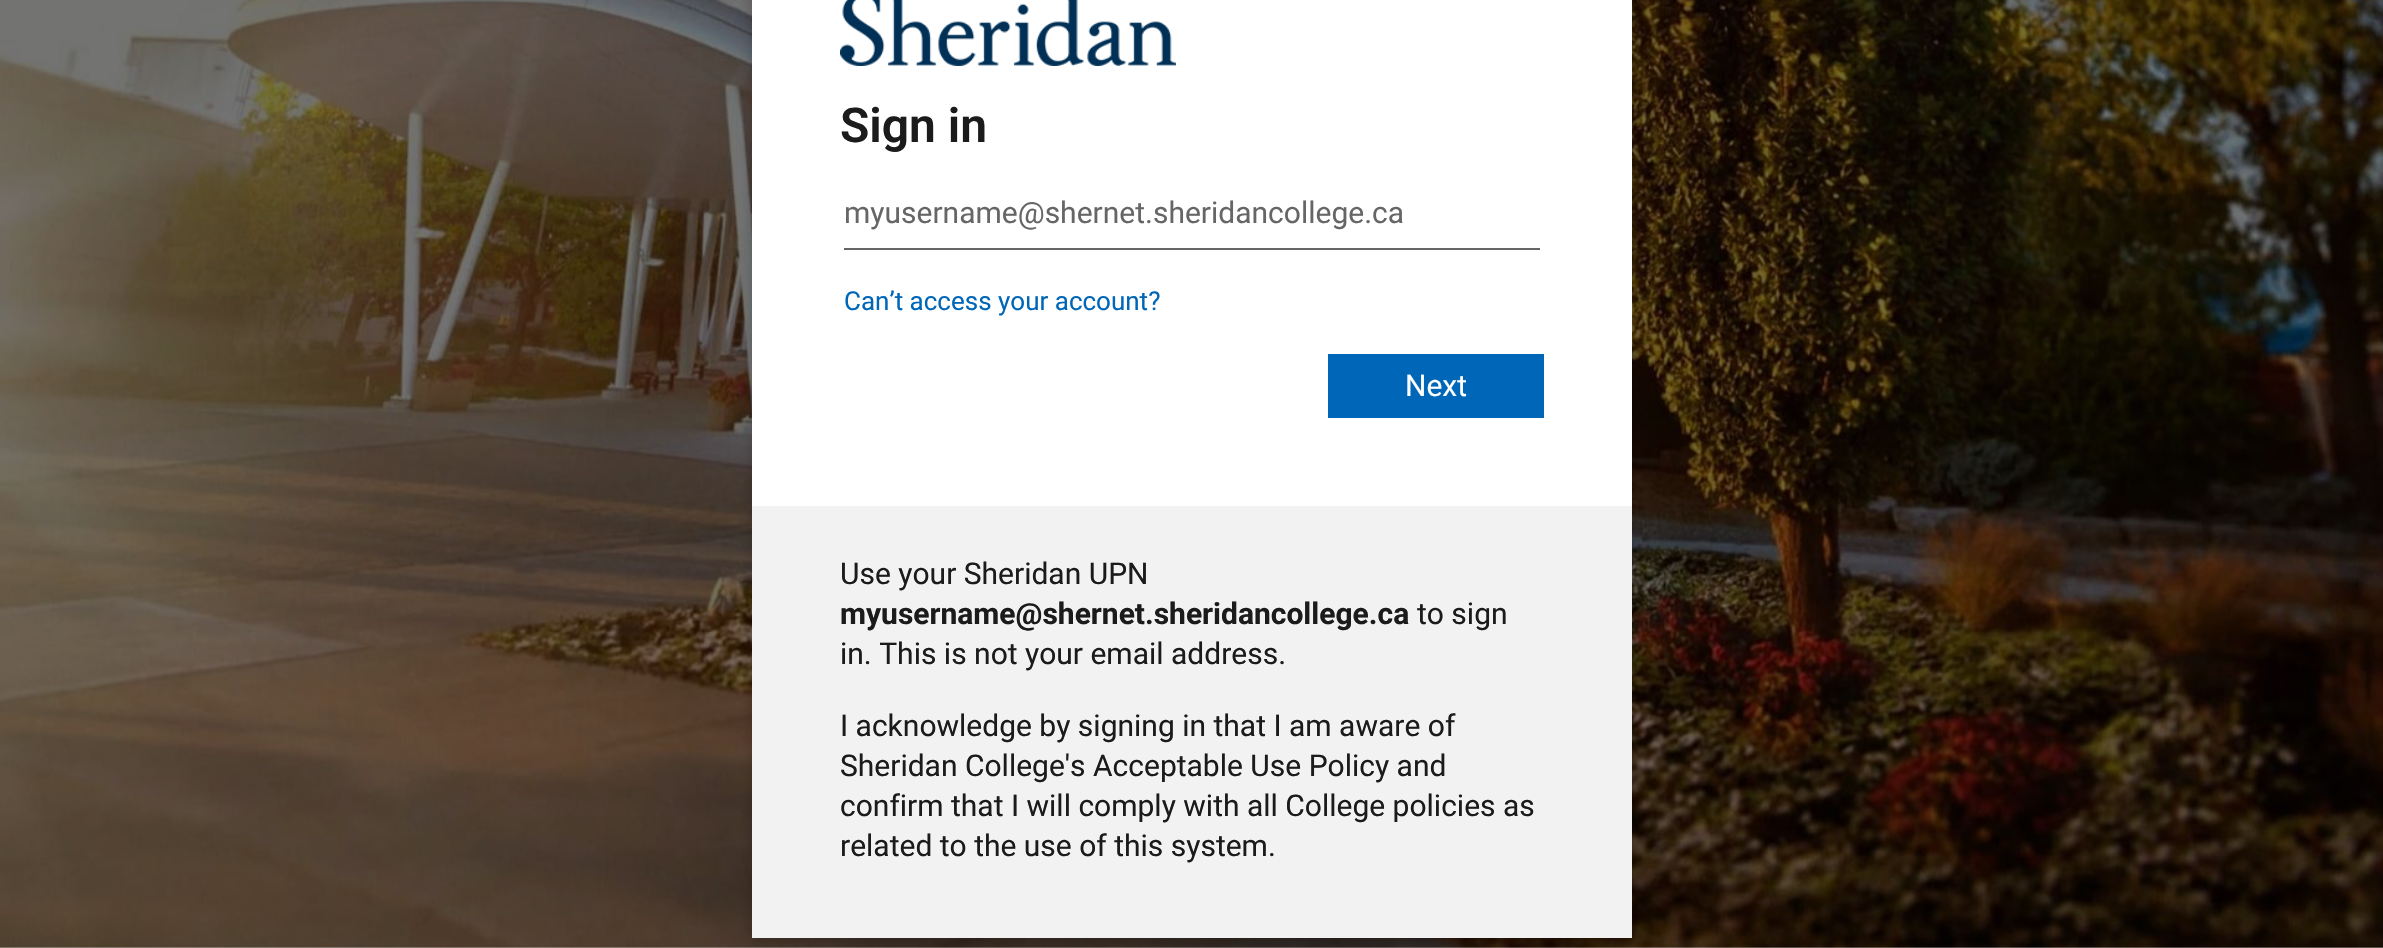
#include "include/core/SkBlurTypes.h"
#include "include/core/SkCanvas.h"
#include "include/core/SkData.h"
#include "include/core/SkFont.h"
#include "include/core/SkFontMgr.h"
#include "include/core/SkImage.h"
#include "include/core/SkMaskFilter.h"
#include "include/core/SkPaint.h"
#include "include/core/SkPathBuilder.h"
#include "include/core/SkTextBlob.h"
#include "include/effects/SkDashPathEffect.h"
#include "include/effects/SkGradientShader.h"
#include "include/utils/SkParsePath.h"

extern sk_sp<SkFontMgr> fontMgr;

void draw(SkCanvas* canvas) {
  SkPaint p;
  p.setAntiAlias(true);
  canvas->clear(SK_ColorWHITE);
  canvas->drawImageRect(SkImages::DeferredFromEncodedData(SkData::MakeFromFileName("images/1.png")), SkRect::MakeLTRB(0, 0, 2383, 948), SkSamplingOptions());
  p.setColor(SkColorSetARGB(51, 0, 0, 0));
  p.setMaskFilter(SkMaskFilter::MakeBlur(kNormal_SkBlurStyle, 6));
  canvas->drawRect(SkRect::MakeLTRB(752, -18, 1632, 942), p);
  p.setMaskFilter(nullptr);
  p.setColor(SK_ColorWHITE);
  canvas->drawRect(SkRect::MakeLTRB(752, 0, 1632, 506), p);
  canvas->drawImageRect(SkImages::DeferredFromEncodedData(SkData::MakeFromFileName("images/2.png")), SkRect::MakeLTRB(840, 0, 1176, 66), SkSamplingOptions());
  p.setColor(SkColorSetRGB(102, 102, 102));
  canvas->drawRect(SkRect::MakeLTRB(844, 248, 1540, 250), p);
  p.setColor(SkColorSetRGB(0, 103, 184));
  canvas->drawRect(SkRect::MakeLTRB(1328, 354, 1544, 418), p);
  p.setColor(SkColorSetRGB(242, 242, 242));
  canvas->drawRect(SkRect::MakeLTRB(752, 506, 1632, 938), p);
  SkFont font1(fontMgr->matchFamilyStyle("Roboto", SkFontStyle(600, SkFontStyle::kNormal_Width, SkFontStyle::kUpright_Slant)), 48);
  font1.setSubpixel(true);
  p.setColor(SkColorSetRGB(27, 27, 27));
  canvas->drawString("Sign in", 840, 142, font1, p);
  SkFont font2(fontMgr->matchFamilyStyle("Roboto", SkFontStyle::Normal()), 30);
  font2.setSubpixel(true);
  p.setColor(SkColorSetRGB(102, 102, 102));
  canvas->drawString("myusername@shernet.sheridancollege.ca", 844, 223, font2, p);
  SkFont font3(fontMgr->matchFamilyStyle("Roboto", SkFontStyle::Normal()), 26);
  font3.setSubpixel(true);
  p.setColor(SkColorSetRGB(0, 103, 184));
  canvas->drawString("Can’t access your account?", 844, 310, font3, p);
  p.setColor(SK_ColorWHITE);
  canvas->drawString("Next", 1405, 396, font2, p);
  p.setColor(SkColorSetRGB(27, 27, 27));
  canvas->drawString("Use your Sheridan UPN", 840, 584, font2, p);
  SkFont font4(fontMgr->matchFamilyStyle("Roboto", SkFontStyle::Bold()), 30);
  font4.setSubpixel(true);
  canvas->drawString("myusername@shernet.sheridancollege.ca", 840, 624, font4, p);
  canvas->drawString("to sign", 1417, 624, font2, p);
  canvas->drawString("in. This is not your email address.", 840, 664, font2, p);
  canvas->drawString("I acknowledge by signing in that I am aware of", 840, 736, font2, p);
  canvas->drawString("Sheridan College's Acceptable Use Policy and", 840, 776, font2, p);
  canvas->drawString("confirm that I will comply with all College policies as", 840, 816, font2, p);
  canvas->drawString("related to the use of this system.", 840, 856, font2, p);
}
